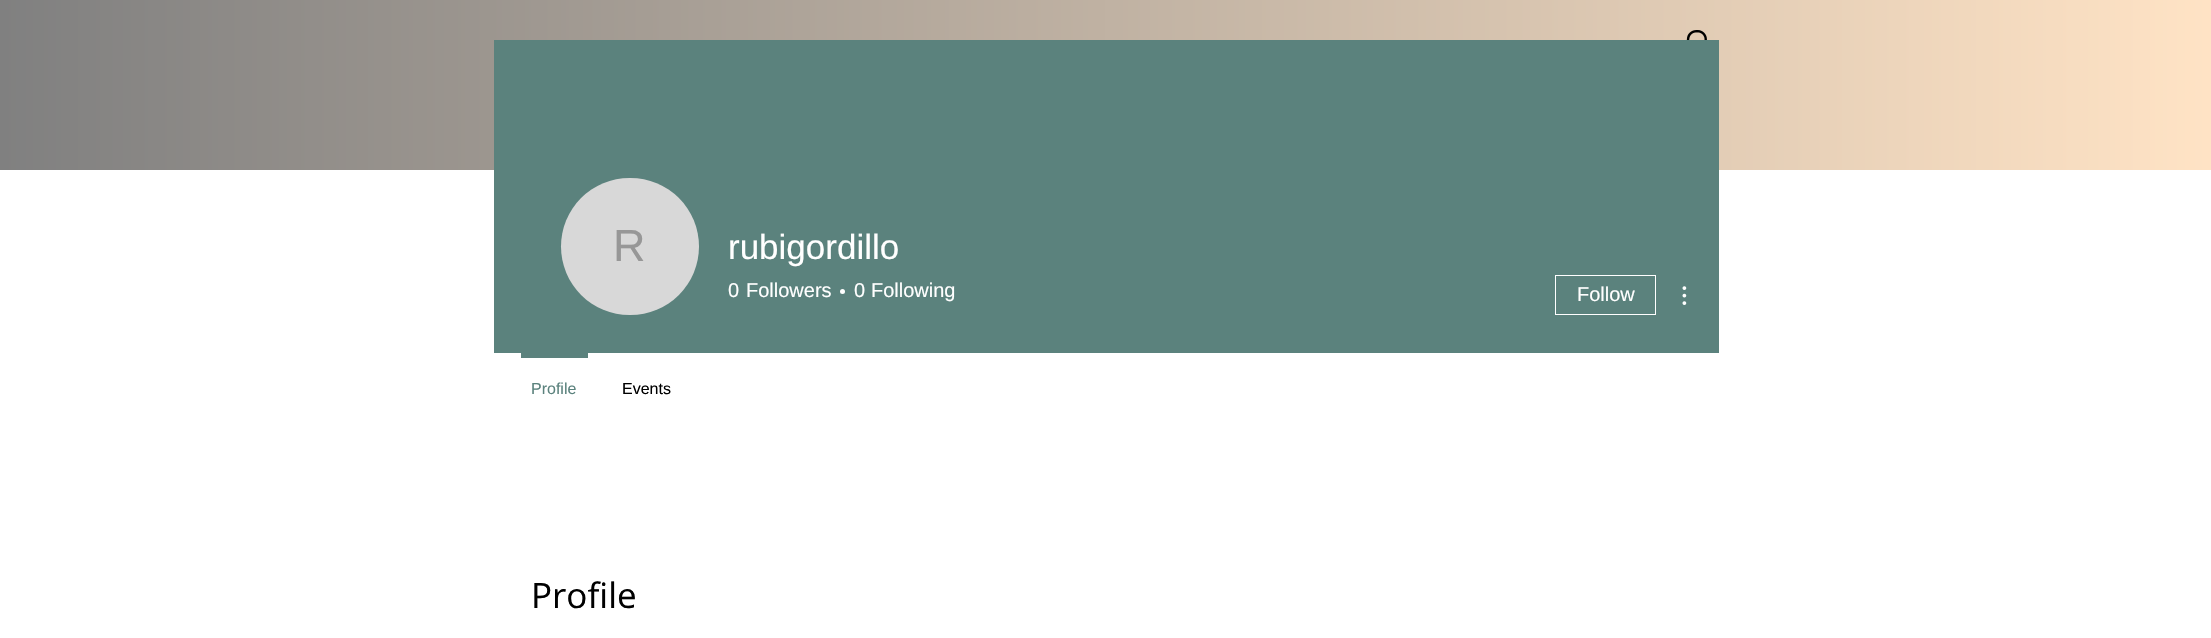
#include "include/core/SkBlurTypes.h"
#include "include/core/SkCanvas.h"
#include "include/core/SkData.h"
#include "include/core/SkFont.h"
#include "include/core/SkFontMgr.h"
#include "include/core/SkImage.h"
#include "include/core/SkMaskFilter.h"
#include "include/core/SkPaint.h"
#include "include/core/SkPathBuilder.h"
#include "include/core/SkTextBlob.h"
#include "include/effects/SkDashPathEffect.h"
#include "include/effects/SkGradientShader.h"
#include "include/utils/SkParsePath.h"

extern sk_sp<SkFontMgr> fontMgr;

void draw(SkCanvas* canvas) {
  SkPaint p;
  p.setAntiAlias(true);
  canvas->clear(SK_ColorWHITE);
  {
    const SkColor colors[] = {SkColorSetRGB(128, 128, 128), SkColorSetRGB(255, 227, 197)};
    const float stops[] = {0, 1};
    const SkPoint ends[] = {{0, 85}, {2211, 85}};
    p.setShader(SkGradientShader::MakeLinear(ends, colors, stops, 2, SkTileMode::kClamp));
    p.setAlpha(255);
  }
  canvas->drawRect(SkRect::MakeLTRB(0, 0, 2211, 170), p);
  canvas->drawImageRect(SkImages::DeferredFromEncodedData(SkData::MakeFromFileName("images/1.png")), SkRect::MakeLTRB(1686, 30, 1707, 40), SkSamplingOptions());
  p.setShader(nullptr);
  p.setColor(SkColorSetRGB(91, 130, 125));
  canvas->drawRect(SkRect::MakeLTRB(494, 40, 1719, 353), p);
  p.setColor(SkColorSetRGB(216, 216, 216));
  canvas->drawRoundRect(SkRect::MakeLTRB(561, 178, 699, 315), 68.5f, 68.5f, p);
  p.setColor(SK_ColorWHITE);
  canvas->drawCircle(842.5f, 291.5f, 2.5f, p);
  p.setStyle(SkPaint::kStroke_Style);
  p.setStrokeWidth(1);
  canvas->drawRect(SkRect::MakeLTRB(1555.5f, 275.5f, 1655.5f, 314.5f), p);
  canvas->drawImageRect(SkImages::DeferredFromEncodedData(SkData::MakeFromFileName("images/2.png")), SkRect::MakeLTRB(1682, 286, 1687, 305), SkSamplingOptions());
  p.setStyle(SkPaint::kFill_Style);
  p.setColor(SkColorSetRGB(91, 130, 125));
  canvas->drawRect(SkRect::MakeLTRB(521, 353, 588, 358), p);
  SkFont font1(fontMgr->matchFamilyStyle("Liberation Sans", SkFontStyle::Normal()), 45);
  font1.setSubpixel(true);
  p.setColor(SkColorSetRGB(151, 151, 151));
  canvas->drawString("R", 613, 261, font1, p);
  SkFont font2(fontMgr->matchFamilyStyle("Liberation Sans", SkFontStyle::Normal()), 35);
  font2.setSubpixel(true);
  p.setColor(SK_ColorWHITE);
  canvas->drawString("rubigordillo", 728, 259, font2, p);
  SkFont font3(fontMgr->matchFamilyStyle("Liberation Sans", SkFontStyle::Normal()), 20);
  font3.setSubpixel(true);
  canvas->drawString("0", 728, 297, font3, p);
  canvas->drawString("Followers", 746, 297, font3, p);
  canvas->drawString("0", 854, 297, font3, p);
  canvas->drawString("Following", 871, 297, font3, p);
  canvas->drawString("Follow", 1577, 301, font3, p);
  SkFont font4(fontMgr->matchFamilyStyle("Liberation Sans", SkFontStyle::Normal()), 16);
  font4.setSubpixel(true);
  p.setColor(SkColorSetRGB(91, 130, 125));
  canvas->drawString("Profile", 531, 394, font4, p);
  p.setColor(SK_ColorBLACK);
  canvas->drawString("Events", 622, 394, font4, p);
  SkFont font5(fontMgr->matchFamilyStyle("Open Sans", SkFontStyle::Normal()), 35);
  font5.setSubpixel(true);
  canvas->drawString("Profile", 531, 608, font5, p);
}
